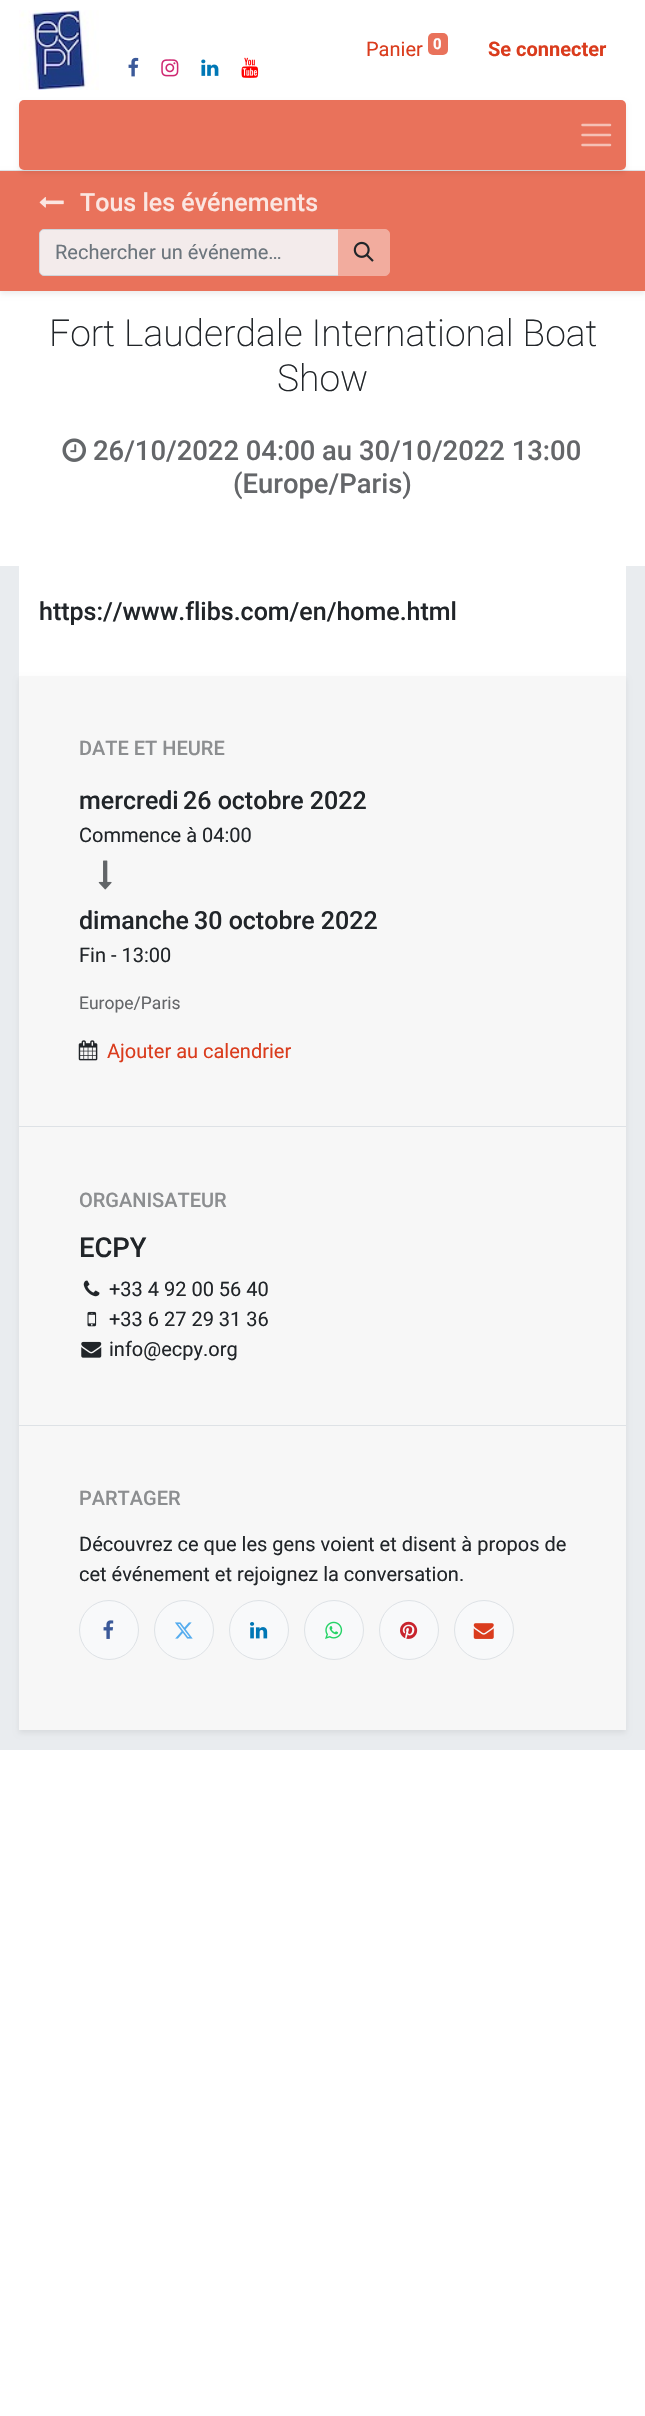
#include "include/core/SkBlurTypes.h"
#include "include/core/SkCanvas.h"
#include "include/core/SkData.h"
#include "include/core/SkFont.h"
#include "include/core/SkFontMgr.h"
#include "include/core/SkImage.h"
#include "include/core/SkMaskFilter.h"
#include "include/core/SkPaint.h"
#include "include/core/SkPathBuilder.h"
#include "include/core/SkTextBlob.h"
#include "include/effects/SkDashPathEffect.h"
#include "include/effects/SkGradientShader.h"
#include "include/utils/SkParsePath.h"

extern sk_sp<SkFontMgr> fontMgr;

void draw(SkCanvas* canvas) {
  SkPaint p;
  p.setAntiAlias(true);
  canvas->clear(SK_ColorWHITE);
  canvas->drawImageRect(SkImages::DeferredFromEncodedData(SkData::MakeFromFileName("images/1.png")), SkRect::MakeLTRB(19, 10, 99, 90), SkSamplingOptions());
  canvas->drawImageRect(SkImages::DeferredFromEncodedData(SkData::MakeFromFileName("images/2.png")), SkRect::MakeLTRB(128, 57, 139, 77), SkSamplingOptions());
  canvas->drawImageRect(SkImages::DeferredFromEncodedData(SkData::MakeFromFileName("images/3.png")), SkRect::MakeLTRB(161, 59, 179, 77), SkSamplingOptions());
  canvas->drawImageRect(SkImages::DeferredFromEncodedData(SkData::MakeFromFileName("images/4.png")), SkRect::MakeLTRB(201, 59, 219, 76), SkSamplingOptions());
  canvas->drawImageRect(SkImages::DeferredFromEncodedData(SkData::MakeFromFileName("images/5.png")), SkRect::MakeLTRB(241, 57, 259, 78), SkSamplingOptions());
  p.setColor(SkColorSetRGB(233, 114, 91));
  canvas->drawRoundRect(SkRect::MakeLTRB(428, 33, 448, 55), 5, 5, p);
  p.setColor(SkColorSetARGB(18, 0, 0, 0));
  p.setMaskFilter(SkMaskFilter::MakeBlur(kNormal_SkBlurStyle, 2.5f));
  canvas->drawRect(SkRect::MakeLTRB(0, 173, 645, 294), p);
  p.setMaskFilter(nullptr);
  p.setColor(SkColorSetRGB(233, 114, 91));
  canvas->drawRect(SkRect::MakeLTRB(0, 171, 645, 291), p);
  p.setColor(SkColorSetRGB(222, 226, 230));
  canvas->drawRect(SkRect::MakeLTRB(0, 170, 645, 171), p);
  p.setColor(SkColorSetARGB(18, 0, 0, 0));
  p.setMaskFilter(SkMaskFilter::MakeBlur(kNormal_SkBlurStyle, 2.5f));
  canvas->drawRoundRect(SkRect::MakeLTRB(19, 103, 626, 173), 5, 5, p);
  p.setMaskFilter(nullptr);
  p.setColor(SkColorSetRGB(233, 114, 91));
  canvas->drawRoundRect(SkRect::MakeLTRB(19, 100, 626, 170), 5, 5, p);
  p.setStyle(SkPaint::kStroke_Style);
  p.setStrokeWidth(2.5f);
  p.setStrokeCap(SkPaint::kRound_Cap);
  p.setColor(SkColorSetRGB(245, 192, 181));
  canvas->drawPath(SkPathBuilder().moveTo(582.5f, 125).lineTo(610, 125).moveTo(582.5f, 135).lineTo(610, 135).moveTo(582.5f, 145).lineTo(610, 145).detach(), p);
  canvas->drawImageRect(SkImages::DeferredFromEncodedData(SkData::MakeFromFileName("images/6.png")), SkRect::MakeLTRB(39, 197, 64, 208), SkSamplingOptions());
  p.setStyle(SkPaint::kFill_Style);
  p.setColor(SkColorSetRGB(243, 235, 235));
  canvas->drawPath(SkPathBuilder().moveTo(44, 229.5f).lineTo(338.5f, 229.5f).lineTo(338.5f, 275.5f).lineTo(44, 275.5f).cubicTo(41.5f, 275.5f, 39.5f, 273.5f, 39.5f, 271).lineTo(39.5f, 234).cubicTo(39.5f, 231.5f, 41.5f, 229.5f, 44, 229.5f).close().detach(), p);
  p.setStyle(SkPaint::kStroke_Style);
  p.setStrokeWidth(1);
  p.setStrokeCap(SkPaint::kButt_Cap);
  p.setColor(SkColorSetRGB(206, 212, 218));
  canvas->drawPath(SkPathBuilder().moveTo(44, 229.5f).lineTo(338.5f, 229.5f).lineTo(338.5f, 275.5f).lineTo(44, 275.5f).cubicTo(41.5f, 275.5f, 39.5f, 273.5f, 39.5f, 271).lineTo(39.5f, 234).cubicTo(39.5f, 231.5f, 41.5f, 229.5f, 44, 229.5f).close().detach(), p);
  p.setStyle(SkPaint::kFill_Style);
  p.setColor(SkColorSetRGB(242, 172, 158));
  canvas->drawPath(SkPathBuilder().moveTo(338.5f, 229.5f).lineTo(385, 229.5f).cubicTo(387.5f, 229.5f, 389.5f, 231.5f, 389.5f, 234).lineTo(389.5f, 271).cubicTo(389.5f, 273.5f, 387.5f, 275.5f, 385, 275.5f).lineTo(338.5f, 275.5f).close().detach(), p);
  p.setStyle(SkPaint::kStroke_Style);
  canvas->drawPath(SkPathBuilder().moveTo(338.5f, 229.5f).lineTo(385, 229.5f).cubicTo(387.5f, 229.5f, 389.5f, 231.5f, 389.5f, 234).lineTo(389.5f, 271).cubicTo(389.5f, 273.5f, 387.5f, 275.5f, 385, 275.5f).lineTo(338.5f, 275.5f).close().detach(), p);
  canvas->drawImageRect(SkImages::DeferredFromEncodedData(SkData::MakeFromFileName("images/7.png")), SkRect::MakeLTRB(353, 241, 374, 262), SkSamplingOptions());
  canvas->drawImageRect(SkImages::DeferredFromEncodedData(SkData::MakeFromFileName("images/8.png")), SkRect::MakeLTRB(62, 438, 86, 462), SkSamplingOptions());
  p.setStyle(SkPaint::kFill_Style);
  p.setColor(SkColorSetRGB(233, 236, 239));
  canvas->drawRect(SkRect::MakeLTRB(0, 566, 645, 1750), p);
  p.setColor(SK_ColorWHITE);
  canvas->drawRect(SkRect::MakeLTRB(19, 566, 626, 676), p);
  p.setColor(SkColorSetARGB(18, 0, 0, 0));
  p.setMaskFilter(SkMaskFilter::MakeBlur(kNormal_SkBlurStyle, 2.5f));
  canvas->drawRect(SkRect::MakeLTRB(19, 679, 626, 1733), p);
  p.setMaskFilter(nullptr);
  p.setColor(SkColorSetRGB(247, 247, 247));
  canvas->drawRect(SkRect::MakeLTRB(19, 676, 626, 1730), p);
  p.setColor(SkColorSetRGB(222, 226, 230));
  canvas->drawRect(SkRect::MakeLTRB(19, 1126, 626, 1127), p);
  canvas->drawImageRect(SkImages::DeferredFromEncodedData(SkData::MakeFromFileName("images/9.png")), SkRect::MakeLTRB(98, 860, 112, 890), SkSamplingOptions());
  canvas->drawImageRect(SkImages::DeferredFromEncodedData(SkData::MakeFromFileName("images/10.png")), SkRect::MakeLTRB(78, 1040, 98, 1061), SkSamplingOptions());
  canvas->drawRect(SkRect::MakeLTRB(19, 1425, 626, 1426), p);
  canvas->drawImageRect(SkImages::DeferredFromEncodedData(SkData::MakeFromFileName("images/11.png")), SkRect::MakeLTRB(83, 1280, 100, 1297), SkSamplingOptions());
  canvas->drawImageRect(SkImages::DeferredFromEncodedData(SkData::MakeFromFileName("images/12.png")), SkRect::MakeLTRB(87, 1311, 97, 1327), SkSamplingOptions());
  canvas->drawImageRect(SkImages::DeferredFromEncodedData(SkData::MakeFromFileName("images/13.png")), SkRect::MakeLTRB(81, 1341, 102, 1358), SkSamplingOptions());
  p.setColor(SkColorSetRGB(248, 249, 250));
  canvas->drawCircle(109, 1630, 29.5f, p);
  p.setStyle(SkPaint::kStroke_Style);
  p.setColor(SkColorSetRGB(222, 226, 230));
  canvas->drawCircle(109, 1630, 29.5f, p);
  canvas->drawImageRect(SkImages::DeferredFromEncodedData(SkData::MakeFromFileName("images/14.png")), SkRect::MakeLTRB(103, 1620, 114, 1639), SkSamplingOptions());
  p.setStyle(SkPaint::kFill_Style);
  p.setColor(SkColorSetRGB(248, 249, 250));
  canvas->drawCircle(184, 1630, 29.5f, p);
  p.setStyle(SkPaint::kStroke_Style);
  p.setColor(SkColorSetRGB(222, 226, 230));
  canvas->drawCircle(184, 1630, 29.5f, p);
  canvas->drawImageRect(SkImages::DeferredFromEncodedData(SkData::MakeFromFileName("images/15.png")), SkRect::MakeLTRB(175, 1622, 193, 1639), SkSamplingOptions());
  p.setStyle(SkPaint::kFill_Style);
  p.setColor(SkColorSetRGB(248, 249, 250));
  canvas->drawCircle(259, 1630, 29.5f, p);
  p.setStyle(SkPaint::kStroke_Style);
  p.setColor(SkColorSetRGB(222, 226, 230));
  canvas->drawCircle(259, 1630, 29.5f, p);
  canvas->drawImageRect(SkImages::DeferredFromEncodedData(SkData::MakeFromFileName("images/16.png")), SkRect::MakeLTRB(250, 1622, 268, 1639), SkSamplingOptions());
  p.setStyle(SkPaint::kFill_Style);
  p.setColor(SkColorSetRGB(248, 249, 250));
  canvas->drawCircle(334, 1630, 29.5f, p);
  p.setStyle(SkPaint::kStroke_Style);
  p.setColor(SkColorSetRGB(222, 226, 230));
  canvas->drawCircle(334, 1630, 29.5f, p);
  canvas->drawImageRect(SkImages::DeferredFromEncodedData(SkData::MakeFromFileName("images/17.png")), SkRect::MakeLTRB(325, 1621, 343, 1639), SkSamplingOptions());
  p.setStyle(SkPaint::kFill_Style);
  p.setColor(SkColorSetRGB(248, 249, 250));
  canvas->drawCircle(409, 1630, 29.5f, p);
  p.setStyle(SkPaint::kStroke_Style);
  p.setColor(SkColorSetRGB(222, 226, 230));
  canvas->drawCircle(409, 1630, 29.5f, p);
  canvas->drawImageRect(SkImages::DeferredFromEncodedData(SkData::MakeFromFileName("images/18.png")), SkRect::MakeLTRB(400, 1621, 418, 1639), SkSamplingOptions());
  p.setStyle(SkPaint::kFill_Style);
  p.setColor(SkColorSetRGB(248, 249, 250));
  canvas->drawCircle(484, 1630, 29.5f, p);
  p.setStyle(SkPaint::kStroke_Style);
  p.setColor(SkColorSetRGB(222, 226, 230));
  canvas->drawCircle(484, 1630, 29.5f, p);
  canvas->drawImageRect(SkImages::DeferredFromEncodedData(SkData::MakeFromFileName("images/19.png")), SkRect::MakeLTRB(473, 1623, 494, 1639), SkSamplingOptions());
  SkFont font1(fontMgr->matchFamilyStyle("Roboto", SkFontStyle::Normal()), 20);
  font1.setSubpixel(true);
  p.setStyle(SkPaint::kFill_Style);
  p.setColor(SkColorSetRGB(218, 60, 29));
  canvas->drawString("Panier", 366, 56, font1, p);
  SkFont font2(fontMgr->matchFamilyStyle("Roboto", SkFontStyle::Bold()), 15);
  font2.setSubpixel(true);
  p.setColor(SK_ColorWHITE);
  canvas->drawString("0", 433, 49, font2, p);
  SkFont font3(fontMgr->matchFamilyStyle("Roboto", SkFontStyle::Bold()), 20);
  font3.setSubpixel(true);
  p.setColor(SkColorSetRGB(218, 60, 29));
  canvas->drawString("Se connecter", 488, 56, font3, p);
  SkFont font4(fontMgr->matchFamilyStyle("Roboto", SkFontStyle(500, SkFontStyle::kNormal_Width, SkFontStyle::kUpright_Slant)), 25);
  font4.setSubpixel(true);
  p.setColor(SkColorSetRGB(251, 230, 225));
  canvas->drawString("Tous les événements", 80, 211, font4, p);
  p.setColor(SkColorSetRGB(108, 117, 125));
  canvas->drawString("Rechercher un événeme…", 55, 259, font1, p);
  SkFont font5(fontMgr->matchFamilyStyle("Roboto", SkFontStyle(200, SkFontStyle::kNormal_Width, SkFontStyle::kUpright_Slant)), 37.2f);
  font5.setSubpixel(true);
  p.setColor(SkColorSetRGB(33, 37, 41));
  canvas->drawString("Fort Lauderdale International Boat", 49, 346, font5, p);
  canvas->drawString("Show", 277, 391, font5, p);
  SkFont font6(fontMgr->matchFamilyStyle("Roboto", SkFontStyle(500, SkFontStyle::kNormal_Width, SkFontStyle::kUpright_Slant)), 27.4f);
  font6.setSubpixel(true);
  p.setColor(SkColorSetRGB(100, 102, 105));
  canvas->drawString("26/10/2022 04:00 au 30/10/2022 13:00", 93, 460, font6, p);
  canvas->drawString("(Europe/Paris)", 233, 493, font6, p);
  p.setColor(SkColorSetRGB(33, 37, 41));
  canvas->drawString("https://www.flibs.com/en/home.html", 39, 620, font4, p);
  SkFont font7(fontMgr->matchFamilyStyle("Roboto", SkFontStyle(500, SkFontStyle::kNormal_Width, SkFontStyle::kUpright_Slant)), 20);
  font7.setSubpixel(true);
  p.setColor(SkColorSetRGB(140, 142, 144));
  canvas->drawString("DATE ET HEURE", 79, 755, font7, p);
  p.setColor(SkColorSetRGB(33, 37, 41));
  canvas->drawString("mercredi", 79, 809, font4, p);
  canvas->drawString("26 octobre 2022", 183, 809, font4, p);
  canvas->drawString("Commence à 04:00", 79, 842, font1, p);
  canvas->drawString("dimanche", 79, 929, font4, p);
  canvas->drawString("30 octobre 2022", 194, 929, font4, p);
  canvas->drawString("Fin - 13:00", 79, 962, font1, p);
  SkFont font8(fontMgr->matchFamilyStyle("Roboto", SkFontStyle::Normal()), 17.5f);
  font8.setSubpixel(true);
  p.setColor(SkColorSetRGB(100, 102, 105));
  canvas->drawString("Europe/Paris", 79, 1009, font8, p);
  p.setColor(SkColorSetRGB(218, 60, 29));
  canvas->drawString("Ajouter au calendrier", 107, 1058, font1, p);
  p.setColor(SkColorSetRGB(140, 142, 144));
  canvas->drawString("ORGANISATEUR", 79, 1207, font7, p);
  p.setColor(SkColorSetRGB(33, 37, 41));
  canvas->drawString("ECPY", 79, 1257, font6, p);
  canvas->drawString("+33 4 92 00 56 40", 109, 1296, font1, p);
  canvas->drawString("+33 6 27 29 31 36", 109, 1326, font1, p);
  canvas->drawString("info@ecpy.org", 109, 1356, font1, p);
  p.setColor(SkColorSetRGB(140, 142, 144));
  canvas->drawString("PARTAGER", 79, 1505, font7, p);
  p.setColor(SkColorSetRGB(33, 37, 41));
  canvas->drawString("Découvrez ce que les gens voient et disent à propos de", 79, 1551, font1, p);
  canvas->drawString("cet événement et rejoignez la conversation.", 79, 1581, font1, p);
}
